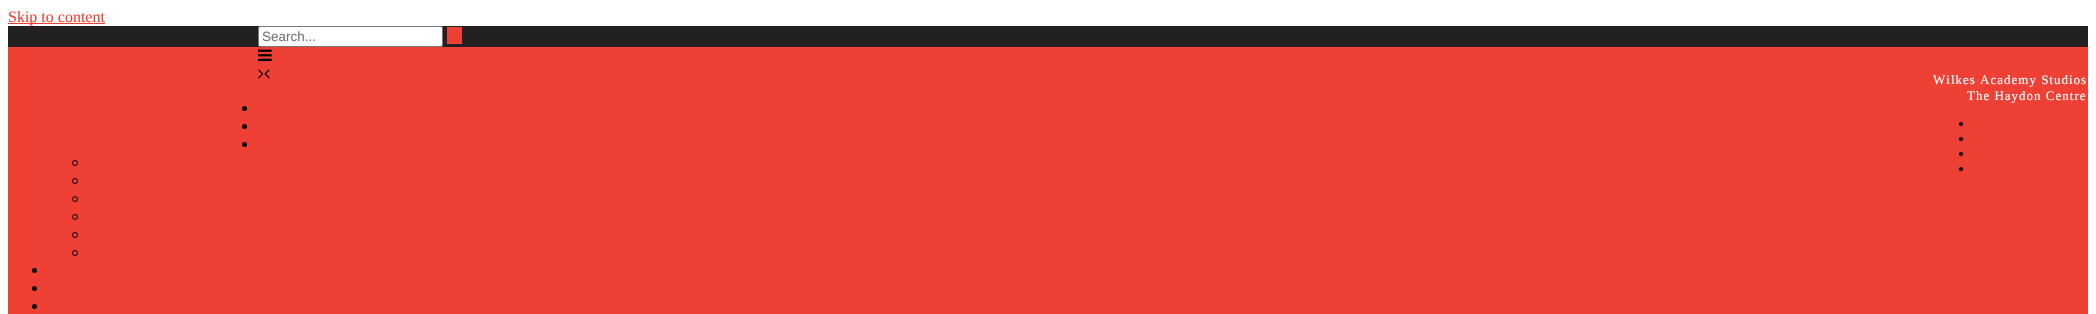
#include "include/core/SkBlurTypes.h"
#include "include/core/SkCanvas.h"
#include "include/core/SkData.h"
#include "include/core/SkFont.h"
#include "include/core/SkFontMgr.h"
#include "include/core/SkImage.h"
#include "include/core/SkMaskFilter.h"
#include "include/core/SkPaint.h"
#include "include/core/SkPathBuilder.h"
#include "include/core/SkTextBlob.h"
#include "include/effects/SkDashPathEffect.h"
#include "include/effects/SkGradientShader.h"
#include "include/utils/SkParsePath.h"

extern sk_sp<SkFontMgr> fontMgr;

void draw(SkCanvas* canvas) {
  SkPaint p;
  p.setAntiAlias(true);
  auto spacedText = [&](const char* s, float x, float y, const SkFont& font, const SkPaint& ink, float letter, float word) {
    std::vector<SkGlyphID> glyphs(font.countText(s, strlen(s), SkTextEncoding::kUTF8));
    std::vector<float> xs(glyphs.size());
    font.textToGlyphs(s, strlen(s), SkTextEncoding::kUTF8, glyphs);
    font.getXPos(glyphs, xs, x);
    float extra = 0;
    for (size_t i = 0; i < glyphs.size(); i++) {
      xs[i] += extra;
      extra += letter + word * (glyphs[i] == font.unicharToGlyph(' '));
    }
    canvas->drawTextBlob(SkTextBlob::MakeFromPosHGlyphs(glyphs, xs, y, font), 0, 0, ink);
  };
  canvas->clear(SK_ColorWHITE);
  p.setColor(SkColorSetRGB(239, 64, 53));
  canvas->drawRect(SkRect::MakeLTRB(8, 23, 105, 24), p);
  p.setColor(SkColorSetRGB(35, 32, 33));
  canvas->drawRect(SkRect::MakeLTRB(8, 26, 2088, 47), p);
  p.setColor(SK_ColorWHITE);
  canvas->drawRoundRect(SkRect::MakeLTRB(258.5f, 26.5f, 442.5f, 46.5f), 1.5f, 1.5f, p);
  p.setStyle(SkPaint::kStroke_Style);
  p.setStrokeWidth(1);
  p.setColor(SkColorSetRGB(118, 118, 118));
  canvas->drawRoundRect(SkRect::MakeLTRB(258.5f, 26.5f, 442.5f, 46.5f), 1.5f, 1.5f, p);
  p.setStyle(SkPaint::kFill_Style);
  p.setColor(SkColorSetRGB(239, 64, 53));
  canvas->drawRect(SkRect::MakeLTRB(447, 27, 462, 44), p);
  canvas->drawRect(SkRect::MakeLTRB(8, 47, 2088, 314), p);
  p.setColor(SK_ColorBLACK);
  canvas->drawCircle(1961, 124, 2, p);
  canvas->drawCircle(1961, 139, 2, p);
  canvas->drawCircle(1961, 154, 2, p);
  canvas->drawCircle(1961, 169, 2, p);
  canvas->drawImageRect(SkImages::DeferredFromEncodedData(SkData::MakeFromFileName("images/1.png")), SkRect::MakeLTRB(258, 49, 272, 61), SkSamplingOptions());
  canvas->drawImageRect(SkImages::DeferredFromEncodedData(SkData::MakeFromFileName("images/2.png")), SkRect::MakeLTRB(258, 69, 264, 79), SkSamplingOptions());
  canvas->drawImageRect(SkImages::DeferredFromEncodedData(SkData::MakeFromFileName("images/3.png")), SkRect::MakeLTRB(264, 69, 270, 79), SkSamplingOptions());
  canvas->drawCircle(244.5f, 108.5f, 2.5f, p);
  canvas->drawCircle(244.5f, 126.5f, 2.5f, p);
  canvas->drawCircle(244.5f, 144.5f, 2.5f, p);
  p.setStyle(SkPaint::kStroke_Style);
  canvas->drawCircle(75, 163, 2.5f, p);
  canvas->drawCircle(75, 181, 2.5f, p);
  canvas->drawCircle(75, 199, 2.5f, p);
  canvas->drawCircle(75, 217, 2.5f, p);
  canvas->drawCircle(75, 235, 2.5f, p);
  canvas->drawCircle(75, 253, 2.5f, p);
  p.setStyle(SkPaint::kFill_Style);
  canvas->drawCircle(34.5f, 270.5f, 2.5f, p);
  canvas->drawCircle(34.5f, 288.5f, 2.5f, p);
  canvas->drawCircle(34.5f, 306.5f, 2.5f, p);
  SkFont font1(fontMgr->matchFamilyStyle("Liberation Serif", SkFontStyle::Normal()), 16);
  font1.setSubpixel(true);
  p.setColor(SkColorSetRGB(239, 64, 53));
  canvas->drawString("Skip to content", 8, 22, font1, p);
  SkFont font2(fontMgr->matchFamilyStyle("Liberation Sans", SkFontStyle::Normal()), 13.5f);
  font2.setSubpixel(true);
  p.setColor(SkColorSetRGB(117, 117, 117));
  canvas->drawString("Search...", 262, 41, font2, p);
  SkFont font3(fontMgr->matchFamilyStyle("Liberation Serif", SkFontStyle::Normal()), 13);
  font3.setSubpixel(true);
  p.setColor(SK_ColorWHITE);
  spacedText("Wilkes Academy Studios", 1933, 84, font3, p, 1, 0);
  spacedText("The Haydon Centre", 1967, 100, font3, p, 1, 0);
}
